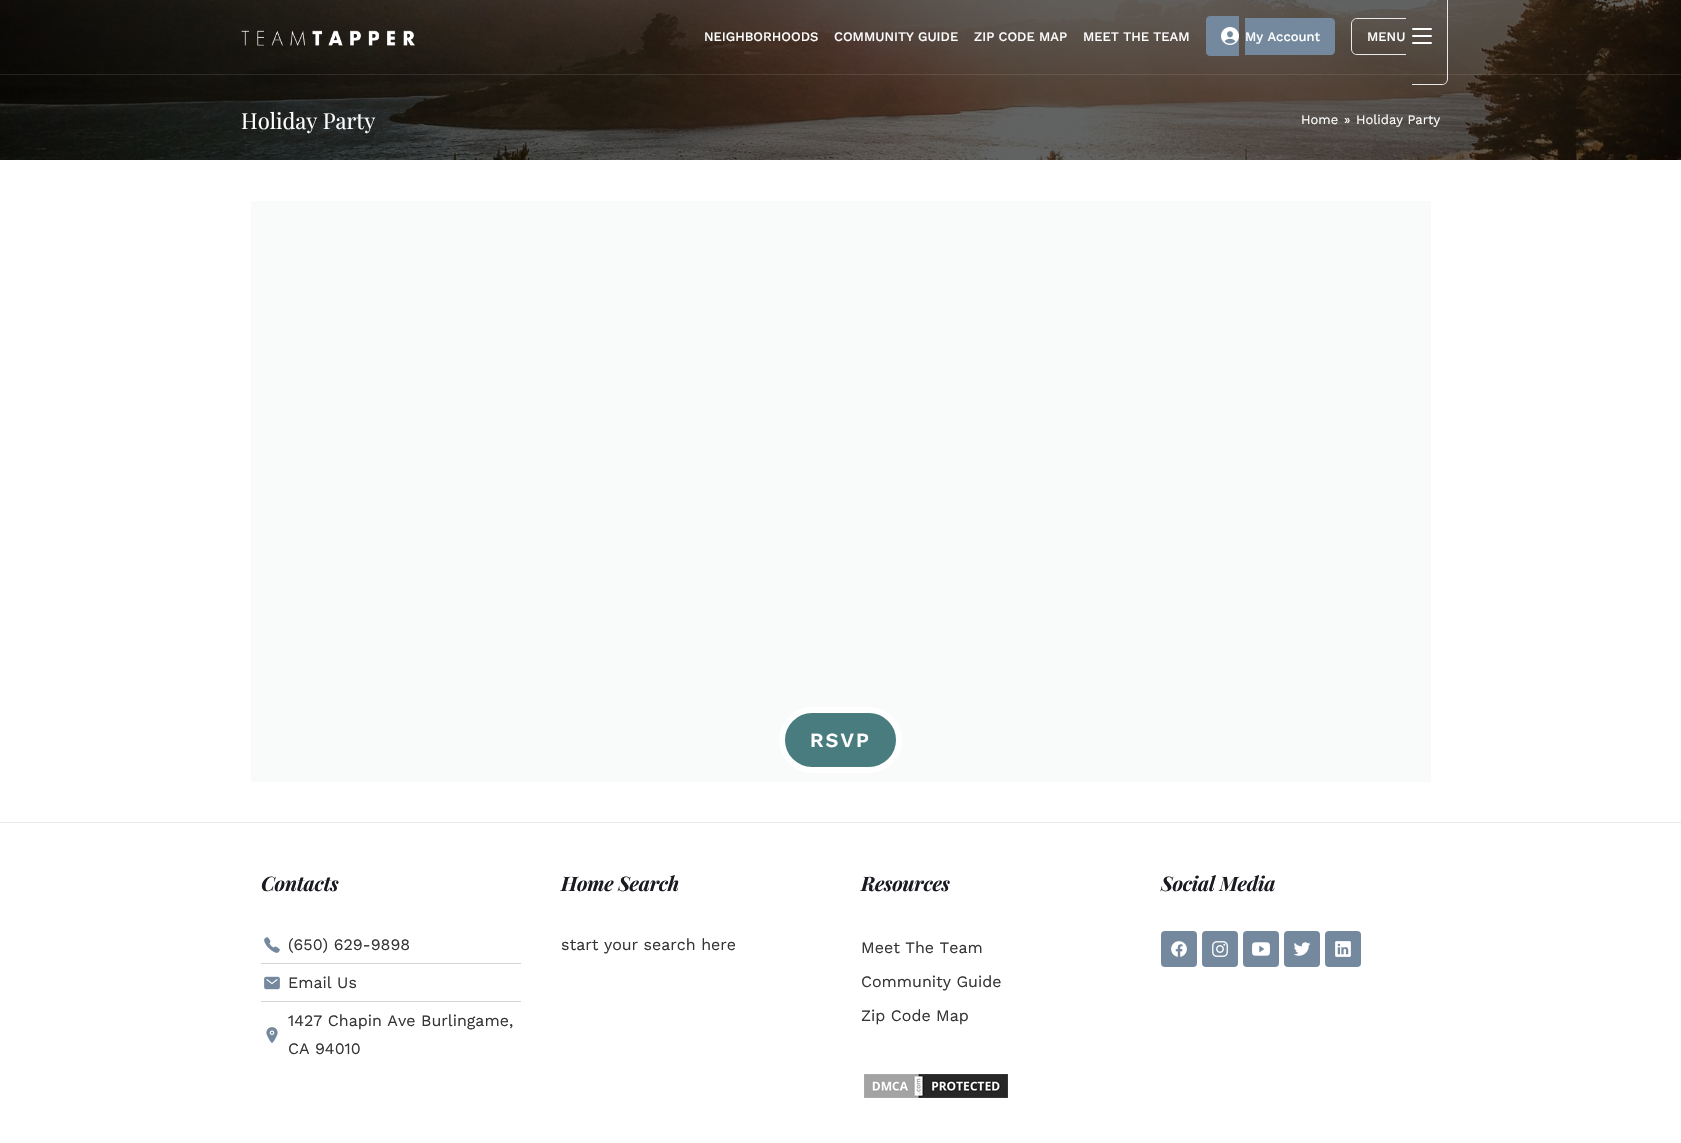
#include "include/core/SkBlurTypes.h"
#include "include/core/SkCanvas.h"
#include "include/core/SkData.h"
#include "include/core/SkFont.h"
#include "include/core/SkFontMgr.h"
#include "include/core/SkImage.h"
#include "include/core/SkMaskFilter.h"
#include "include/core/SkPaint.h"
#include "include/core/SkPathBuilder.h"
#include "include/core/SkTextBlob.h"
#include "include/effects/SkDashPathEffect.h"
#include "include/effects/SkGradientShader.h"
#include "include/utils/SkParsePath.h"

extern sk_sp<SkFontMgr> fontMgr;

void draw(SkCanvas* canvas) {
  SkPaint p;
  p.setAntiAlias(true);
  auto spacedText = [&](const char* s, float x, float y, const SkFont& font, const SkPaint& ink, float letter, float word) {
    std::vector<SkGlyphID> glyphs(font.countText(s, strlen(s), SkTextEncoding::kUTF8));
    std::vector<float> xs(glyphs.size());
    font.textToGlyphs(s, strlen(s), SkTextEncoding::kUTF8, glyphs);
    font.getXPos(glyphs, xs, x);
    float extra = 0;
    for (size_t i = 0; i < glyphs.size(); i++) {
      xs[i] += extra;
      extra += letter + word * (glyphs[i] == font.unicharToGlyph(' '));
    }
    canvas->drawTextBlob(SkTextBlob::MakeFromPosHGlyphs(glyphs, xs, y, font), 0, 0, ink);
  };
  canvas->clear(SK_ColorWHITE);
  canvas->drawImageRect(SkImages::DeferredFromEncodedData(SkData::MakeFromFileName("images/3.png")), SkRect::MakeLTRB(0, 0, 1681, 160), SkSamplingOptions());
  p.setColor(SkColorSetARGB(26, 255, 255, 255));
  canvas->drawRect(SkRect::MakeLTRB(0, 74, 1681, 75), p);
  canvas->drawImageRect(SkImages::DeferredFromEncodedData(SkData::MakeFromFileName("images/1.png")), SkRect::MakeLTRB(241, 30, 415, 46), SkSamplingOptions());
  p.setColor(SkColorSetRGB(116, 137, 158));
  canvas->drawPath(SkPathBuilder().moveTo(1210, 16).lineTo(1239, 16).lineTo(1239, 56).lineTo(1210, 56).cubicTo(1208, 56, 1206, 54, 1206, 52).lineTo(1206, 20).cubicTo(1206, 18, 1208, 16, 1210, 16).close().detach(), p);
  canvas->drawImageRect(SkImages::DeferredFromEncodedData(SkData::MakeFromFileName("images/2.png")), SkRect::MakeLTRB(1221, 27, 1239, 45), SkSamplingOptions());
  canvas->drawPath(SkPathBuilder().moveTo(1245, 18).lineTo(1331, 18).cubicTo(1333, 18, 1335, 20, 1335, 22).lineTo(1335, 51).cubicTo(1335, 53, 1333, 55, 1331, 55).lineTo(1245, 55).close().detach(), p);
  p.setColor(SkColorSetRGB(233, 233, 233));
  canvas->drawPath(SkPathBuilder(SkPathFillType::kEvenOdd).moveTo(1357, 18).lineTo(1406, 18).lineTo(1406, 55).lineTo(1357, 55).cubicTo(1354, 55, 1351, 52, 1351, 49).lineTo(1351, 24).cubicTo(1351, 21, 1354, 18, 1357, 18).close().moveTo(1357, 19).lineTo(1406, 19).lineTo(1406, 54).lineTo(1357, 54).cubicTo(1354, 54, 1352, 52, 1352, 49).lineTo(1352, 24).cubicTo(1352, 21, 1354, 19, 1357, 19).close().detach(), p);
  canvas->drawPath(SkPathBuilder(SkPathFillType::kEvenOdd).moveTo(1412, -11).lineTo(1442, -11).cubicTo(1445, -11, 1448, -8, 1448, -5).lineTo(1448, 79).cubicTo(1448, 82, 1445, 85, 1442, 85).lineTo(1412, 85).close().moveTo(1412, -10).lineTo(1442, -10).cubicTo(1445, -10, 1447, -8, 1447, -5).lineTo(1447, 79).cubicTo(1447, 82, 1445, 84, 1442, 84).lineTo(1412, 84).close().detach(), p);
  p.setColor(SK_ColorWHITE);
  canvas->drawRoundRect(SkRect::MakeLTRB(1412, 35, 1432, 37), 1, 1, p);
  canvas->drawRoundRect(SkRect::MakeLTRB(1412, 28, 1432, 30), 1, 1, p);
  canvas->drawRoundRect(SkRect::MakeLTRB(1412, 42, 1432, 44), 1, 1, p);
  p.setColor(SkColorSetRGB(249, 250, 250));
  canvas->drawRect(SkRect::MakeLTRB(251, 201, 1431, 782), p);
  p.setColor(SkColorSetRGB(73, 124, 126));
  canvas->drawRoundRect(SkRect::MakeLTRB(782, 710, 899, 770), 30, 30, p);
  p.setStyle(SkPaint::kStroke_Style);
  p.setStrokeWidth(6);
  p.setColor(SK_ColorWHITE);
  canvas->drawRoundRect(SkRect::MakeLTRB(782, 710, 899, 770), 30, 30, p);
  p.setStyle(SkPaint::kFill_Style);
  p.setColor(SkColorSetRGB(235, 235, 235));
  canvas->drawRect(SkRect::MakeLTRB(0, 822, 1681, 823), p);
  canvas->drawImageRect(SkImages::DeferredFromEncodedData(SkData::MakeFromFileName("images/4.png")), SkRect::MakeLTRB(264, 937, 280, 953), SkSamplingOptions());
  p.setColor(SkColorSetRGB(212, 212, 212));
  canvas->drawRect(SkRect::MakeLTRB(261, 963, 521, 964), p);
  canvas->drawImageRect(SkImages::DeferredFromEncodedData(SkData::MakeFromFileName("images/5.png")), SkRect::MakeLTRB(264, 976, 280, 990), SkSamplingOptions());
  canvas->drawRect(SkRect::MakeLTRB(261, 1001, 521, 1002), p);
  canvas->drawImageRect(SkImages::DeferredFromEncodedData(SkData::MakeFromFileName("images/6.png")), SkRect::MakeLTRB(266, 1027, 278, 1043), SkSamplingOptions());
  canvas->drawImageRect(SkImages::DeferredFromEncodedData(SkData::MakeFromFileName("images/7.png")), SkRect::MakeLTRB(864, 1074, 1008, 1098), SkSamplingOptions());
  p.setColor(SkColorSetRGB(116, 137, 158));
  canvas->drawRoundRect(SkRect::MakeLTRB(1161, 931, 1197, 967), 4, 4, p);
  canvas->drawImageRect(SkImages::DeferredFromEncodedData(SkData::MakeFromFileName("images/8.png")), SkRect::MakeLTRB(1171, 941, 1187, 957), SkSamplingOptions());
  canvas->drawRoundRect(SkRect::MakeLTRB(1202, 931, 1238, 967), 4, 4, p);
  canvas->drawImageRect(SkImages::DeferredFromEncodedData(SkData::MakeFromFileName("images/9.png")), SkRect::MakeLTRB(1212, 941, 1228, 957), SkSamplingOptions());
  canvas->drawRoundRect(SkRect::MakeLTRB(1243, 931, 1279, 967), 4, 4, p);
  canvas->drawImageRect(SkImages::DeferredFromEncodedData(SkData::MakeFromFileName("images/10.png")), SkRect::MakeLTRB(1252, 942, 1270, 956), SkSamplingOptions());
  canvas->drawRoundRect(SkRect::MakeLTRB(1284, 931, 1320, 967), 4, 4, p);
  canvas->drawImageRect(SkImages::DeferredFromEncodedData(SkData::MakeFromFileName("images/11.png")), SkRect::MakeLTRB(1293, 942, 1311, 956), SkSamplingOptions());
  canvas->drawRoundRect(SkRect::MakeLTRB(1325, 931, 1361, 967), 4, 4, p);
  canvas->drawImageRect(SkImages::DeferredFromEncodedData(SkData::MakeFromFileName("images/12.png")), SkRect::MakeLTRB(1335, 941, 1351, 957), SkSamplingOptions());
  SkFont font1(fontMgr->matchFamilyStyle("Work Sans", SkFontStyle(500, SkFontStyle::kNormal_Width, SkFontStyle::kUpright_Slant)), 13);
  font1.setSubpixel(true);
  p.setColor(SK_ColorWHITE);
  canvas->drawString("NEIGHBORHOODS", 704, 41, font1, p);
  canvas->drawString("COMMUNITY GUIDE", 834, 41, font1, p);
  canvas->drawString("ZIP CODE MAP", 974, 41, font1, p);
  canvas->drawString("MEET THE TEAM", 1083, 41, font1, p);
  canvas->drawString("My Account", 1245, 41, font1, p);
  canvas->drawString("MENU", 1367, 41, font1, p);
  SkFont font2(fontMgr->matchFamilyStyle("Playfair Display", SkFontStyle::Normal()), 22);
  font2.setSubpixel(true);
  canvas->drawString("Holiday Party", 241, 129, font2, p);
  SkFont font3(fontMgr->matchFamilyStyle("Work Sans", SkFontStyle::Normal()), 13);
  font3.setSubpixel(true);
  canvas->drawString("Home", 1301, 124, font3, p);
  canvas->drawString("»", 1344, 124, font3, p);
  canvas->drawString("Holiday Party", 1356, 124, font3, p);
  SkFont font4(fontMgr->matchFamilyStyle("Work Sans", SkFontStyle(600, SkFontStyle::kNormal_Width, SkFontStyle::kUpright_Slant)), 20);
  font4.setSubpixel(true);
  spacedText("RSVP", 810, 747, font4, p, 2, 0);
  SkFont font5(fontMgr->matchFamilyStyle("Playfair Display", SkFontStyle::BoldItalic()), 20);
  font5.setSubpixel(true);
  p.setColor(SkColorSetRGB(25, 27, 33));
  spacedText("Contacts", 261, 891, font5, p, -0.25f, 0);
  SkFont font6(fontMgr->matchFamilyStyle("Work Sans", SkFontStyle::Normal()), 16);
  font6.setSubpixel(true);
  p.setColor(SkColorSetRGB(53, 53, 53));
  canvas->drawString("(650) 629-9898", 288, 950, font6, p);
  canvas->drawString("Email Us", 288, 988, font6, p);
  canvas->drawString("1427 Chapin Ave Burlingame,", 288, 1026, font6, p);
  canvas->drawString("CA 94010", 288, 1054, font6, p);
  p.setColor(SkColorSetRGB(25, 27, 33));
  spacedText("Home Search", 561, 891, font5, p, -0.25f, 0);
  p.setColor(SkColorSetRGB(53, 53, 53));
  canvas->drawString("start your search here", 561, 950, font6, p);
  p.setColor(SkColorSetRGB(25, 27, 33));
  spacedText("Resources", 861, 891, font5, p, -0.25f, 0);
  p.setColor(SkColorSetRGB(53, 53, 53));
  canvas->drawString("Meet The Team", 861, 953, font6, p);
  canvas->drawString("Community Guide", 861, 987, font6, p);
  canvas->drawString("Zip Code Map", 861, 1021, font6, p);
  p.setColor(SkColorSetRGB(25, 27, 33));
  spacedText("Social Media", 1161, 891, font5, p, -0.25f, 0);
}
